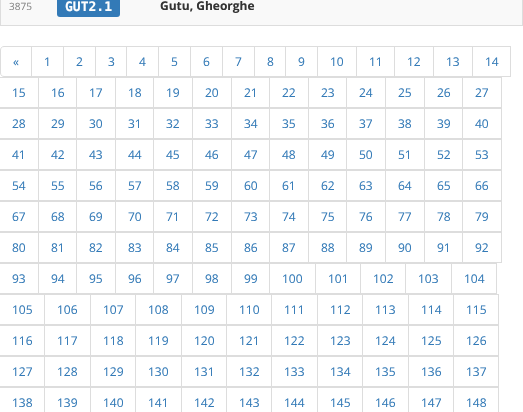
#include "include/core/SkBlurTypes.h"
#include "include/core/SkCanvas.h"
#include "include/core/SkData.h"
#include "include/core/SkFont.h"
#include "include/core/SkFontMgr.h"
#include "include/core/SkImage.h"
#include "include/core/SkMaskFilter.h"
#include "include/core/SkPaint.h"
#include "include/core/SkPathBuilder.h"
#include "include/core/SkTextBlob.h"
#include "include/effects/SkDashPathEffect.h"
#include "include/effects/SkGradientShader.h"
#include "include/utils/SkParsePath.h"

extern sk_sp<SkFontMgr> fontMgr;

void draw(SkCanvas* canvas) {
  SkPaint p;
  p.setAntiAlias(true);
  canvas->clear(SK_ColorWHITE);
  p.setStyle(SkPaint::kStroke_Style);
  p.setStrokeWidth(1);
  p.setColor(SkColorSetRGB(221, 221, 221));
  canvas->drawRect(SkRect::MakeLTRB(0.5f, -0.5f, 522.5f, 25.5f), p);
  p.setStyle(SkPaint::kFill_Style);
  p.setColor(SkColorSetRGB(249, 249, 249));
  canvas->drawRect(SkRect::MakeLTRB(1, 0, 522, 25), p);
  p.setColor(SkColorSetRGB(51, 122, 183));
  canvas->drawRoundRect(SkRect::MakeLTRB(57, -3, 120, 17), 3, 3, p);
  p.setStyle(SkPaint::kStroke_Style);
  p.setColor(SkColorSetRGB(221, 221, 221));
  canvas->drawPath(SkPathBuilder().moveTo(4, 46.5f).lineTo(31.5f, 46.5f).lineTo(31.5f, 76.5f).lineTo(4, 76.5f).cubicTo(2, 76.5f, 0.5f, 75, 0.5f, 73).lineTo(0.5f, 50).cubicTo(0.5f, 48, 2, 46.5f, 4, 46.5f).close().detach(), p);
  canvas->drawRect(SkRect::MakeLTRB(31.5f, 46.5f, 63.5f, 76.5f), p);
  canvas->drawRect(SkRect::MakeLTRB(63.5f, 46.5f, 95.5f, 76.5f), p);
  canvas->drawRect(SkRect::MakeLTRB(95.5f, 46.5f, 126.5f, 76.5f), p);
  canvas->drawRect(SkRect::MakeLTRB(126.5f, 46.5f, 158.5f, 76.5f), p);
  canvas->drawRect(SkRect::MakeLTRB(158.5f, 46.5f, 190.5f, 76.5f), p);
  canvas->drawRect(SkRect::MakeLTRB(190.5f, 46.5f, 222.5f, 76.5f), p);
  canvas->drawRect(SkRect::MakeLTRB(222.5f, 46.5f, 254.5f, 76.5f), p);
  canvas->drawRect(SkRect::MakeLTRB(254.5f, 46.5f, 285.5f, 76.5f), p);
  canvas->drawRect(SkRect::MakeLTRB(285.5f, 46.5f, 317.5f, 76.5f), p);
  canvas->drawRect(SkRect::MakeLTRB(317.5f, 46.5f, 356.5f, 76.5f), p);
  canvas->drawRect(SkRect::MakeLTRB(356.5f, 46.5f, 394.5f, 76.5f), p);
  canvas->drawRect(SkRect::MakeLTRB(394.5f, 46.5f, 433.5f, 76.5f), p);
  canvas->drawRect(SkRect::MakeLTRB(433.5f, 46.5f, 472.5f, 76.5f), p);
  canvas->drawRect(SkRect::MakeLTRB(472.5f, 46.5f, 510.5f, 76.5f), p);
  canvas->drawRect(SkRect::MakeLTRB(-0.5f, 77.5f, 38.5f, 107.5f), p);
  canvas->drawRect(SkRect::MakeLTRB(38.5f, 77.5f, 76.5f, 107.5f), p);
  canvas->drawRect(SkRect::MakeLTRB(76.5f, 77.5f, 115.5f, 107.5f), p);
  canvas->drawRect(SkRect::MakeLTRB(115.5f, 77.5f, 153.5f, 107.5f), p);
  canvas->drawRect(SkRect::MakeLTRB(153.5f, 77.5f, 192.5f, 107.5f), p);
  canvas->drawRect(SkRect::MakeLTRB(192.5f, 77.5f, 231.5f, 107.5f), p);
  canvas->drawRect(SkRect::MakeLTRB(231.5f, 77.5f, 269.5f, 107.5f), p);
  canvas->drawRect(SkRect::MakeLTRB(269.5f, 77.5f, 308.5f, 107.5f), p);
  canvas->drawRect(SkRect::MakeLTRB(308.5f, 77.5f, 346.5f, 107.5f), p);
  canvas->drawRect(SkRect::MakeLTRB(346.5f, 77.5f, 385.5f, 107.5f), p);
  canvas->drawRect(SkRect::MakeLTRB(385.5f, 77.5f, 424.5f, 107.5f), p);
  canvas->drawRect(SkRect::MakeLTRB(424.5f, 77.5f, 462.5f, 107.5f), p);
  canvas->drawRect(SkRect::MakeLTRB(462.5f, 77.5f, 501.5f, 107.5f), p);
  canvas->drawRect(SkRect::MakeLTRB(-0.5f, 108.5f, 38.5f, 138.5f), p);
  canvas->drawRect(SkRect::MakeLTRB(38.5f, 108.5f, 76.5f, 138.5f), p);
  canvas->drawRect(SkRect::MakeLTRB(76.5f, 108.5f, 115.5f, 138.5f), p);
  canvas->drawRect(SkRect::MakeLTRB(115.5f, 108.5f, 153.5f, 138.5f), p);
  canvas->drawRect(SkRect::MakeLTRB(153.5f, 108.5f, 192.5f, 138.5f), p);
  canvas->drawRect(SkRect::MakeLTRB(192.5f, 108.5f, 231.5f, 138.5f), p);
  canvas->drawRect(SkRect::MakeLTRB(231.5f, 108.5f, 269.5f, 138.5f), p);
  canvas->drawRect(SkRect::MakeLTRB(269.5f, 108.5f, 308.5f, 138.5f), p);
  canvas->drawRect(SkRect::MakeLTRB(308.5f, 108.5f, 346.5f, 138.5f), p);
  canvas->drawRect(SkRect::MakeLTRB(346.5f, 108.5f, 385.5f, 138.5f), p);
  canvas->drawRect(SkRect::MakeLTRB(385.5f, 108.5f, 424.5f, 138.5f), p);
  canvas->drawRect(SkRect::MakeLTRB(424.5f, 108.5f, 462.5f, 138.5f), p);
  canvas->drawRect(SkRect::MakeLTRB(462.5f, 108.5f, 501.5f, 138.5f), p);
  canvas->drawRect(SkRect::MakeLTRB(-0.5f, 139.5f, 38.5f, 169.5f), p);
  canvas->drawRect(SkRect::MakeLTRB(38.5f, 139.5f, 76.5f, 169.5f), p);
  canvas->drawRect(SkRect::MakeLTRB(76.5f, 139.5f, 115.5f, 169.5f), p);
  canvas->drawRect(SkRect::MakeLTRB(115.5f, 139.5f, 153.5f, 169.5f), p);
  canvas->drawRect(SkRect::MakeLTRB(153.5f, 139.5f, 192.5f, 169.5f), p);
  canvas->drawRect(SkRect::MakeLTRB(192.5f, 139.5f, 231.5f, 169.5f), p);
  canvas->drawRect(SkRect::MakeLTRB(231.5f, 139.5f, 269.5f, 169.5f), p);
  canvas->drawRect(SkRect::MakeLTRB(269.5f, 139.5f, 308.5f, 169.5f), p);
  canvas->drawRect(SkRect::MakeLTRB(308.5f, 139.5f, 346.5f, 169.5f), p);
  canvas->drawRect(SkRect::MakeLTRB(346.5f, 139.5f, 385.5f, 169.5f), p);
  canvas->drawRect(SkRect::MakeLTRB(385.5f, 139.5f, 424.5f, 169.5f), p);
  canvas->drawRect(SkRect::MakeLTRB(424.5f, 139.5f, 462.5f, 169.5f), p);
  canvas->drawRect(SkRect::MakeLTRB(462.5f, 139.5f, 501.5f, 169.5f), p);
  canvas->drawRect(SkRect::MakeLTRB(-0.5f, 170.5f, 38.5f, 200.5f), p);
  canvas->drawRect(SkRect::MakeLTRB(38.5f, 170.5f, 76.5f, 200.5f), p);
  canvas->drawRect(SkRect::MakeLTRB(76.5f, 170.5f, 115.5f, 200.5f), p);
  canvas->drawRect(SkRect::MakeLTRB(115.5f, 170.5f, 153.5f, 200.5f), p);
  canvas->drawRect(SkRect::MakeLTRB(153.5f, 170.5f, 192.5f, 200.5f), p);
  canvas->drawRect(SkRect::MakeLTRB(192.5f, 170.5f, 231.5f, 200.5f), p);
  canvas->drawRect(SkRect::MakeLTRB(231.5f, 170.5f, 269.5f, 200.5f), p);
  canvas->drawRect(SkRect::MakeLTRB(269.5f, 170.5f, 308.5f, 200.5f), p);
  canvas->drawRect(SkRect::MakeLTRB(308.5f, 170.5f, 346.5f, 200.5f), p);
  canvas->drawRect(SkRect::MakeLTRB(346.5f, 170.5f, 385.5f, 200.5f), p);
  canvas->drawRect(SkRect::MakeLTRB(385.5f, 170.5f, 424.5f, 200.5f), p);
  canvas->drawRect(SkRect::MakeLTRB(424.5f, 170.5f, 462.5f, 200.5f), p);
  canvas->drawRect(SkRect::MakeLTRB(462.5f, 170.5f, 501.5f, 200.5f), p);
  canvas->drawRect(SkRect::MakeLTRB(-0.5f, 201.5f, 38.5f, 231.5f), p);
  canvas->drawRect(SkRect::MakeLTRB(38.5f, 201.5f, 76.5f, 231.5f), p);
  canvas->drawRect(SkRect::MakeLTRB(76.5f, 201.5f, 115.5f, 231.5f), p);
  canvas->drawRect(SkRect::MakeLTRB(115.5f, 201.5f, 153.5f, 231.5f), p);
  canvas->drawRect(SkRect::MakeLTRB(153.5f, 201.5f, 192.5f, 231.5f), p);
  canvas->drawRect(SkRect::MakeLTRB(192.5f, 201.5f, 231.5f, 231.5f), p);
  canvas->drawRect(SkRect::MakeLTRB(231.5f, 201.5f, 269.5f, 231.5f), p);
  canvas->drawRect(SkRect::MakeLTRB(269.5f, 201.5f, 308.5f, 231.5f), p);
  canvas->drawRect(SkRect::MakeLTRB(308.5f, 201.5f, 346.5f, 231.5f), p);
  canvas->drawRect(SkRect::MakeLTRB(346.5f, 201.5f, 385.5f, 231.5f), p);
  canvas->drawRect(SkRect::MakeLTRB(385.5f, 201.5f, 424.5f, 231.5f), p);
  canvas->drawRect(SkRect::MakeLTRB(424.5f, 201.5f, 462.5f, 231.5f), p);
  canvas->drawRect(SkRect::MakeLTRB(462.5f, 201.5f, 501.5f, 231.5f), p);
  canvas->drawRect(SkRect::MakeLTRB(-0.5f, 232.5f, 38.5f, 262.5f), p);
  canvas->drawRect(SkRect::MakeLTRB(38.5f, 232.5f, 76.5f, 262.5f), p);
  canvas->drawRect(SkRect::MakeLTRB(76.5f, 232.5f, 115.5f, 262.5f), p);
  canvas->drawRect(SkRect::MakeLTRB(115.5f, 232.5f, 153.5f, 262.5f), p);
  canvas->drawRect(SkRect::MakeLTRB(153.5f, 232.5f, 192.5f, 262.5f), p);
  canvas->drawRect(SkRect::MakeLTRB(192.5f, 232.5f, 231.5f, 262.5f), p);
  canvas->drawRect(SkRect::MakeLTRB(231.5f, 232.5f, 269.5f, 262.5f), p);
  canvas->drawRect(SkRect::MakeLTRB(269.5f, 232.5f, 308.5f, 262.5f), p);
  canvas->drawRect(SkRect::MakeLTRB(308.5f, 232.5f, 346.5f, 262.5f), p);
  canvas->drawRect(SkRect::MakeLTRB(346.5f, 232.5f, 385.5f, 262.5f), p);
  canvas->drawRect(SkRect::MakeLTRB(385.5f, 232.5f, 424.5f, 262.5f), p);
  canvas->drawRect(SkRect::MakeLTRB(424.5f, 232.5f, 462.5f, 262.5f), p);
  canvas->drawRect(SkRect::MakeLTRB(462.5f, 232.5f, 501.5f, 262.5f), p);
  canvas->drawRect(SkRect::MakeLTRB(-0.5f, 263.5f, 38.5f, 293.5f), p);
  canvas->drawRect(SkRect::MakeLTRB(38.5f, 263.5f, 76.5f, 293.5f), p);
  canvas->drawRect(SkRect::MakeLTRB(76.5f, 263.5f, 115.5f, 293.5f), p);
  canvas->drawRect(SkRect::MakeLTRB(115.5f, 263.5f, 153.5f, 293.5f), p);
  canvas->drawRect(SkRect::MakeLTRB(153.5f, 263.5f, 192.5f, 293.5f), p);
  canvas->drawRect(SkRect::MakeLTRB(192.5f, 263.5f, 231.5f, 293.5f), p);
  canvas->drawRect(SkRect::MakeLTRB(231.5f, 263.5f, 269.5f, 293.5f), p);
  canvas->drawRect(SkRect::MakeLTRB(269.5f, 263.5f, 315.5f, 293.5f), p);
  canvas->drawRect(SkRect::MakeLTRB(315.5f, 263.5f, 360.5f, 293.5f), p);
  canvas->drawRect(SkRect::MakeLTRB(360.5f, 263.5f, 405.5f, 293.5f), p);
  canvas->drawRect(SkRect::MakeLTRB(405.5f, 263.5f, 451.5f, 293.5f), p);
  canvas->drawRect(SkRect::MakeLTRB(451.5f, 263.5f, 496.5f, 293.5f), p);
  canvas->drawRect(SkRect::MakeLTRB(-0.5f, 294.5f, 44.5f, 324.5f), p);
  canvas->drawRect(SkRect::MakeLTRB(44.5f, 294.5f, 90.5f, 324.5f), p);
  canvas->drawRect(SkRect::MakeLTRB(90.5f, 294.5f, 135.5f, 324.5f), p);
  canvas->drawRect(SkRect::MakeLTRB(135.5f, 294.5f, 181.5f, 324.5f), p);
  canvas->drawRect(SkRect::MakeLTRB(181.5f, 294.5f, 226.5f, 324.5f), p);
  canvas->drawRect(SkRect::MakeLTRB(226.5f, 294.5f, 271.5f, 324.5f), p);
  canvas->drawRect(SkRect::MakeLTRB(271.5f, 294.5f, 317.5f, 324.5f), p);
  canvas->drawRect(SkRect::MakeLTRB(317.5f, 294.5f, 362.5f, 324.5f), p);
  canvas->drawRect(SkRect::MakeLTRB(362.5f, 294.5f, 408.5f, 324.5f), p);
  canvas->drawRect(SkRect::MakeLTRB(408.5f, 294.5f, 453.5f, 324.5f), p);
  canvas->drawRect(SkRect::MakeLTRB(453.5f, 294.5f, 498.5f, 324.5f), p);
  canvas->drawRect(SkRect::MakeLTRB(-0.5f, 325.5f, 44.5f, 355.5f), p);
  canvas->drawRect(SkRect::MakeLTRB(44.5f, 325.5f, 90.5f, 355.5f), p);
  canvas->drawRect(SkRect::MakeLTRB(90.5f, 325.5f, 135.5f, 355.5f), p);
  canvas->drawRect(SkRect::MakeLTRB(135.5f, 325.5f, 181.5f, 355.5f), p);
  canvas->drawRect(SkRect::MakeLTRB(181.5f, 325.5f, 226.5f, 355.5f), p);
  canvas->drawRect(SkRect::MakeLTRB(226.5f, 325.5f, 271.5f, 355.5f), p);
  canvas->drawRect(SkRect::MakeLTRB(271.5f, 325.5f, 317.5f, 355.5f), p);
  canvas->drawRect(SkRect::MakeLTRB(317.5f, 325.5f, 362.5f, 355.5f), p);
  canvas->drawRect(SkRect::MakeLTRB(362.5f, 325.5f, 408.5f, 355.5f), p);
  canvas->drawRect(SkRect::MakeLTRB(408.5f, 325.5f, 453.5f, 355.5f), p);
  canvas->drawRect(SkRect::MakeLTRB(453.5f, 325.5f, 498.5f, 355.5f), p);
  canvas->drawRect(SkRect::MakeLTRB(-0.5f, 356.5f, 44.5f, 386.5f), p);
  canvas->drawRect(SkRect::MakeLTRB(44.5f, 356.5f, 90.5f, 386.5f), p);
  canvas->drawRect(SkRect::MakeLTRB(90.5f, 356.5f, 135.5f, 386.5f), p);
  canvas->drawRect(SkRect::MakeLTRB(135.5f, 356.5f, 181.5f, 386.5f), p);
  canvas->drawRect(SkRect::MakeLTRB(181.5f, 356.5f, 226.5f, 386.5f), p);
  canvas->drawRect(SkRect::MakeLTRB(226.5f, 356.5f, 271.5f, 386.5f), p);
  canvas->drawRect(SkRect::MakeLTRB(271.5f, 356.5f, 317.5f, 386.5f), p);
  canvas->drawRect(SkRect::MakeLTRB(317.5f, 356.5f, 362.5f, 386.5f), p);
  canvas->drawRect(SkRect::MakeLTRB(362.5f, 356.5f, 408.5f, 386.5f), p);
  canvas->drawRect(SkRect::MakeLTRB(408.5f, 356.5f, 453.5f, 386.5f), p);
  canvas->drawRect(SkRect::MakeLTRB(453.5f, 356.5f, 498.5f, 386.5f), p);
  canvas->drawRect(SkRect::MakeLTRB(-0.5f, 387.5f, 44.5f, 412.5f), p);
  canvas->drawRect(SkRect::MakeLTRB(44.5f, 387.5f, 90.5f, 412.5f), p);
  canvas->drawRect(SkRect::MakeLTRB(90.5f, 387.5f, 135.5f, 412.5f), p);
  canvas->drawRect(SkRect::MakeLTRB(135.5f, 387.5f, 181.5f, 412.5f), p);
  canvas->drawRect(SkRect::MakeLTRB(181.5f, 387.5f, 226.5f, 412.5f), p);
  canvas->drawRect(SkRect::MakeLTRB(226.5f, 387.5f, 271.5f, 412.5f), p);
  canvas->drawRect(SkRect::MakeLTRB(271.5f, 387.5f, 317.5f, 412.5f), p);
  canvas->drawRect(SkRect::MakeLTRB(317.5f, 387.5f, 362.5f, 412.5f), p);
  canvas->drawRect(SkRect::MakeLTRB(362.5f, 387.5f, 408.5f, 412.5f), p);
  canvas->drawRect(SkRect::MakeLTRB(408.5f, 387.5f, 453.5f, 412.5f), p);
  canvas->drawRect(SkRect::MakeLTRB(453.5f, 387.5f, 498.5f, 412.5f), p);
  SkFont font1(fontMgr->matchFamilyStyle("Open Sans", SkFontStyle::Normal()), 10);
  font1.setSubpixel(true);
  p.setStyle(SkPaint::kFill_Style);
  p.setColor(SkColorSetRGB(136, 136, 136));
  canvas->drawString("3875", 9, 10, font1, p);
  SkFont font2(fontMgr->matchFamilyStyle("DejaVu Sans Mono", SkFontStyle::Bold()), 13);
  font2.setSubpixel(true);
  p.setColor(SK_ColorWHITE);
  canvas->drawString("GUT2.1", 65, 11, font2, p);
  SkFont font3(fontMgr->matchFamilyStyle("Open Sans", SkFontStyle::Bold()), 12);
  font3.setSubpixel(true);
  p.setColor(SkColorSetRGB(51, 51, 51));
  canvas->drawString("Gutu, Gheorghe", 160, 10, font3, p);
  SkFont font4(fontMgr->matchFamilyStyle("Open Sans", SkFontStyle::Normal()), 12);
  font4.setSubpixel(true);
  p.setColor(SkColorSetRGB(51, 122, 183));
  canvas->drawString("«", 13, 66, font4, p);
  canvas->drawString("1", 44, 66, font4, p);
  canvas->drawString("2", 76, 66, font4, p);
  canvas->drawString("3", 108, 66, font4, p);
  canvas->drawString("4", 139, 66, font4, p);
  canvas->drawString("5", 171, 66, font4, p);
  canvas->drawString("6", 203, 66, font4, p);
  canvas->drawString("7", 235, 66, font4, p);
  canvas->drawString("8", 267, 66, font4, p);
  canvas->drawString("9", 298, 66, font4, p);
  canvas->drawString("10", 330, 66, font4, p);
  canvas->drawString("11", 369, 66, font4, p);
  canvas->drawString("12", 407, 66, font4, p);
  canvas->drawString("13", 446, 66, font4, p);
  canvas->drawString("14", 485, 66, font4, p);
  canvas->drawString("15", 12, 97, font4, p);
  canvas->drawString("16", 51, 97, font4, p);
  canvas->drawString("17", 89, 97, font4, p);
  canvas->drawString("18", 128, 97, font4, p);
  canvas->drawString("19", 166, 97, font4, p);
  canvas->drawString("20", 205, 97, font4, p);
  canvas->drawString("21", 244, 97, font4, p);
  canvas->drawString("22", 282, 97, font4, p);
  canvas->drawString("23", 321, 97, font4, p);
  canvas->drawString("24", 359, 97, font4, p);
  canvas->drawString("25", 398, 97, font4, p);
  canvas->drawString("26", 437, 97, font4, p);
  canvas->drawString("27", 475, 97, font4, p);
  canvas->drawString("28", 12, 128, font4, p);
  canvas->drawString("29", 51, 128, font4, p);
  canvas->drawString("30", 89, 128, font4, p);
  canvas->drawString("31", 128, 128, font4, p);
  canvas->drawString("32", 166, 128, font4, p);
  canvas->drawString("33", 205, 128, font4, p);
  canvas->drawString("34", 244, 128, font4, p);
  canvas->drawString("35", 282, 128, font4, p);
  canvas->drawString("36", 321, 128, font4, p);
  canvas->drawString("37", 359, 128, font4, p);
  canvas->drawString("38", 398, 128, font4, p);
  canvas->drawString("39", 437, 128, font4, p);
  canvas->drawString("40", 475, 128, font4, p);
  canvas->drawString("41", 12, 159, font4, p);
  canvas->drawString("42", 51, 159, font4, p);
  canvas->drawString("43", 89, 159, font4, p);
  canvas->drawString("44", 128, 159, font4, p);
  canvas->drawString("45", 166, 159, font4, p);
  canvas->drawString("46", 205, 159, font4, p);
  canvas->drawString("47", 244, 159, font4, p);
  canvas->drawString("48", 282, 159, font4, p);
  canvas->drawString("49", 321, 159, font4, p);
  canvas->drawString("50", 359, 159, font4, p);
  canvas->drawString("51", 398, 159, font4, p);
  canvas->drawString("52", 437, 159, font4, p);
  canvas->drawString("53", 475, 159, font4, p);
  canvas->drawString("54", 12, 190, font4, p);
  canvas->drawString("55", 51, 190, font4, p);
  canvas->drawString("56", 89, 190, font4, p);
  canvas->drawString("57", 128, 190, font4, p);
  canvas->drawString("58", 166, 190, font4, p);
  canvas->drawString("59", 205, 190, font4, p);
  canvas->drawString("60", 244, 190, font4, p);
  canvas->drawString("61", 282, 190, font4, p);
  canvas->drawString("62", 321, 190, font4, p);
  canvas->drawString("63", 359, 190, font4, p);
  canvas->drawString("64", 398, 190, font4, p);
  canvas->drawString("65", 437, 190, font4, p);
  canvas->drawString("66", 475, 190, font4, p);
  canvas->drawString("67", 12, 221, font4, p);
  canvas->drawString("68", 51, 221, font4, p);
  canvas->drawString("69", 89, 221, font4, p);
  canvas->drawString("70", 128, 221, font4, p);
  canvas->drawString("71", 166, 221, font4, p);
  canvas->drawString("72", 205, 221, font4, p);
  canvas->drawString("73", 244, 221, font4, p);
  canvas->drawString("74", 282, 221, font4, p);
  canvas->drawString("75", 321, 221, font4, p);
  canvas->drawString("76", 359, 221, font4, p);
  canvas->drawString("77", 398, 221, font4, p);
  canvas->drawString("78", 437, 221, font4, p);
  canvas->drawString("79", 475, 221, font4, p);
  canvas->drawString("80", 12, 252, font4, p);
  canvas->drawString("81", 51, 252, font4, p);
  canvas->drawString("82", 89, 252, font4, p);
  canvas->drawString("83", 128, 252, font4, p);
  canvas->drawString("84", 166, 252, font4, p);
  canvas->drawString("85", 205, 252, font4, p);
  canvas->drawString("86", 244, 252, font4, p);
  canvas->drawString("87", 282, 252, font4, p);
  canvas->drawString("88", 321, 252, font4, p);
  canvas->drawString("89", 359, 252, font4, p);
  canvas->drawString("90", 398, 252, font4, p);
  canvas->drawString("91", 437, 252, font4, p);
  canvas->drawString("92", 475, 252, font4, p);
  canvas->drawString("93", 12, 283, font4, p);
  canvas->drawString("94", 51, 283, font4, p);
  canvas->drawString("95", 89, 283, font4, p);
  canvas->drawString("96", 128, 283, font4, p);
  canvas->drawString("97", 166, 283, font4, p);
  canvas->drawString("98", 205, 283, font4, p);
  canvas->drawString("99", 244, 283, font4, p);
  canvas->drawString("100", 282, 283, font4, p);
  canvas->drawString("101", 328, 283, font4, p);
  canvas->drawString("102", 373, 283, font4, p);
  canvas->drawString("103", 418, 283, font4, p);
  canvas->drawString("104", 464, 283, font4, p);
  canvas->drawString("105", 12, 314, font4, p);
  canvas->drawString("106", 57, 314, font4, p);
  canvas->drawString("107", 103, 314, font4, p);
  canvas->drawString("108", 148, 314, font4, p);
  canvas->drawString("109", 194, 314, font4, p);
  canvas->drawString("110", 239, 314, font4, p);
  canvas->drawString("111", 284, 314, font4, p);
  canvas->drawString("112", 330, 314, font4, p);
  canvas->drawString("113", 375, 314, font4, p);
  canvas->drawString("114", 421, 314, font4, p);
  canvas->drawString("115", 466, 314, font4, p);
  canvas->drawString("116", 12, 345, font4, p);
  canvas->drawString("117", 57, 345, font4, p);
  canvas->drawString("118", 103, 345, font4, p);
  canvas->drawString("119", 148, 345, font4, p);
  canvas->drawString("120", 194, 345, font4, p);
  canvas->drawString("121", 239, 345, font4, p);
  canvas->drawString("122", 284, 345, font4, p);
  canvas->drawString("123", 330, 345, font4, p);
  canvas->drawString("124", 375, 345, font4, p);
  canvas->drawString("125", 421, 345, font4, p);
  canvas->drawString("126", 466, 345, font4, p);
  canvas->drawString("127", 12, 376, font4, p);
  canvas->drawString("128", 57, 376, font4, p);
  canvas->drawString("129", 103, 376, font4, p);
  canvas->drawString("130", 148, 376, font4, p);
  canvas->drawString("131", 194, 376, font4, p);
  canvas->drawString("132", 239, 376, font4, p);
  canvas->drawString("133", 284, 376, font4, p);
  canvas->drawString("134", 330, 376, font4, p);
  canvas->drawString("135", 375, 376, font4, p);
  canvas->drawString("136", 421, 376, font4, p);
  canvas->drawString("137", 466, 376, font4, p);
  canvas->drawString("138", 12, 407, font4, p);
  canvas->drawString("139", 57, 407, font4, p);
  canvas->drawString("140", 103, 407, font4, p);
  canvas->drawString("141", 148, 407, font4, p);
  canvas->drawString("142", 194, 407, font4, p);
  canvas->drawString("143", 239, 407, font4, p);
  canvas->drawString("144", 284, 407, font4, p);
  canvas->drawString("145", 330, 407, font4, p);
  canvas->drawString("146", 375, 407, font4, p);
  canvas->drawString("147", 421, 407, font4, p);
  canvas->drawString("148", 466, 407, font4, p);
}
